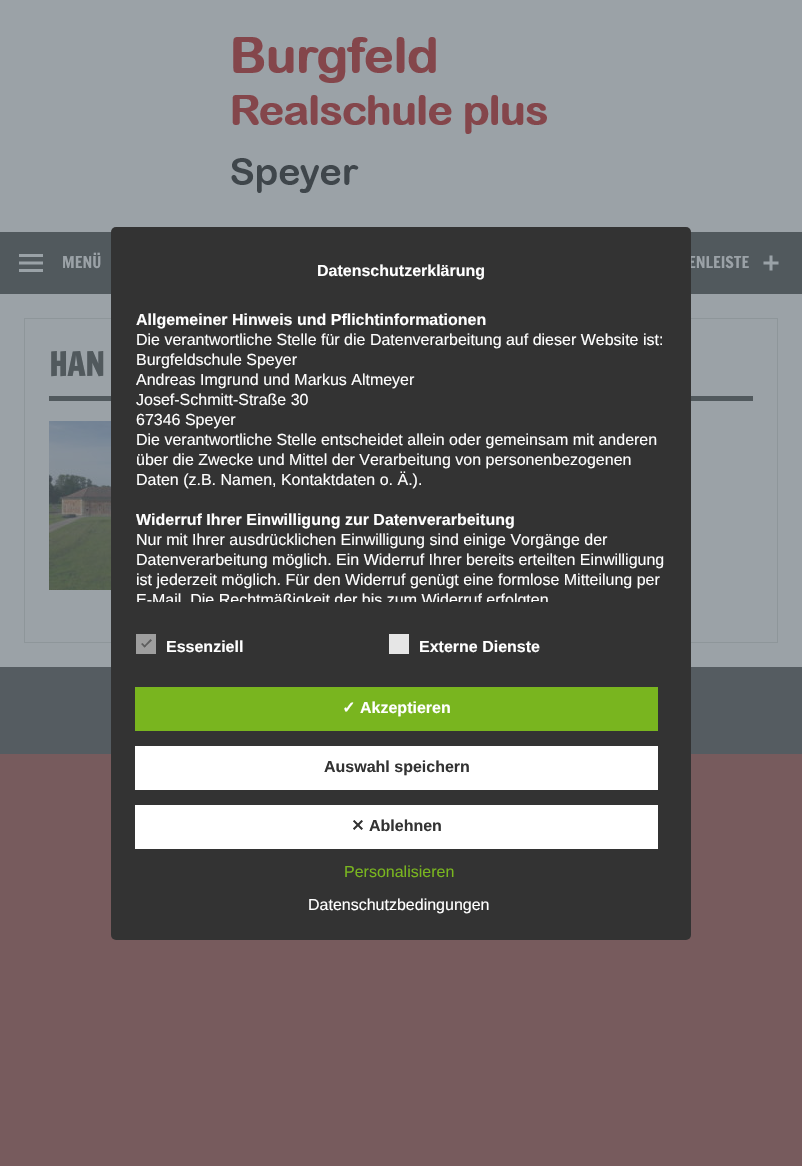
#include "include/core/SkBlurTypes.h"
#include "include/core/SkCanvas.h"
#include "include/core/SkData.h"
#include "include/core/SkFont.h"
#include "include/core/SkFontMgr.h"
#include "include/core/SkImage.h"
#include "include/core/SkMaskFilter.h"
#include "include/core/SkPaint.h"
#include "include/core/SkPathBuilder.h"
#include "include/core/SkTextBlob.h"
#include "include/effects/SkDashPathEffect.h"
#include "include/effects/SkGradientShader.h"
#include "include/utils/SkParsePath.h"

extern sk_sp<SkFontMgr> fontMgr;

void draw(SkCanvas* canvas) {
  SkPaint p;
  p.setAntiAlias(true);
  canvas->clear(SkColorSetRGB(119, 91, 93));
  p.setColor(SkColorSetRGB(155, 162, 167));
  canvas->drawRect(SkRect::MakeLTRB(0, 0, 802, 667), p);
  canvas->drawImageRect(SkImages::DeferredFromEncodedData(SkData::MakeFromFileName("images/1.png")), SkRect::MakeLTRB(231, 37, 547, 193), SkSamplingOptions());
  p.setColor(SkColorSetRGB(81, 89, 93));
  canvas->drawRect(SkRect::MakeLTRB(0, 232, 802, 294), p);
  canvas->drawImageRect(SkImages::DeferredFromEncodedData(SkData::MakeFromFileName("images/2.png")), SkRect::MakeLTRB(19, 254, 43, 272), SkSamplingOptions());
  canvas->drawImageRect(SkImages::DeferredFromEncodedData(SkData::MakeFromFileName("images/3.png")), SkRect::MakeLTRB(763, 255, 779, 271), SkSamplingOptions());
  p.setStyle(SkPaint::kStroke_Style);
  p.setStrokeWidth(1);
  p.setColor(SkColorSetRGB(142, 150, 154));
  canvas->drawRect(SkRect::MakeLTRB(24.5f, 318.5f, 777.5f, 642.5f), p);
  p.setStyle(SkPaint::kFill_Style);
  p.setColor(SkColorSetRGB(81, 89, 93));
  canvas->drawRect(SkRect::MakeLTRB(49, 396, 753, 401), p);
  canvas->drawImageRect(SkImages::DeferredFromEncodedData(SkData::MakeFromFileName("images/4.png")), SkRect::MakeLTRB(49, 421, 111, 590), SkSamplingOptions());
  p.setColor(SkColorSetRGB(85, 92, 97));
  canvas->drawRect(SkRect::MakeLTRB(0, 667, 802, 754), p);
  SkFont font1(fontMgr->matchFamilyStyle("Francois One", SkFontStyle::Normal()), 16);
  font1.setSubpixel(true);
  p.setColor(SkColorSetRGB(155, 162, 167));
  canvas->drawString("MENÜ", 62, 268, font1, p);
  canvas->drawString("ENLEISTE", 688, 268, font1, p);
  SkFont font2(fontMgr->matchFamilyStyle("Francois One", SkFontStyle::Bold()), 32);
  font2.setSubpixel(true);
  p.setColor(SkColorSetRGB(81, 89, 93));
  canvas->drawString("HAN", 49, 376, font2, p);
  p.setColor(SkColorSetRGB(51, 51, 51));
  canvas->drawRoundRect(SkRect::MakeLTRB(111, 227, 691, 940), 5, 5, p);
  SkFont font3(fontMgr->matchFamilyStyle("Liberation Sans", SkFontStyle::Bold()), 16);
  font3.setSubpixel(true);
  p.setColor(SK_ColorWHITE);
  canvas->drawString("Datenschutzerklärung", 317, 276, font3, p);
  canvas->drawString("Allgemeiner Hinweis und Pflichtinformationen", 136, 325, font3, p);
  SkFont font4(fontMgr->matchFamilyStyle("Liberation Sans", SkFontStyle::Normal()), 16);
  font4.setSubpixel(true);
  canvas->drawString("Die verantwortliche Stelle für die Datenverarbeitung auf dieser Website ist:", 136, 345, font4, p);
  canvas->drawString("Burgfeldschule Speyer", 136, 365, font4, p);
  canvas->drawString("Andreas Imgrund und Markus Altmeyer", 136, 385, font4, p);
  canvas->drawString("Josef-Schmitt-Straße 30", 136, 405, font4, p);
  canvas->drawString("67346 Speyer", 136, 425, font4, p);
  canvas->drawString("Die verantwortliche Stelle entscheidet allein oder gemeinsam mit anderen", 136, 445, font4, p);
  canvas->drawString("über die Zwecke und Mittel der Verarbeitung von personenbezogenen", 136, 465, font4, p);
  canvas->drawString("Daten (z.B. Namen, Kontaktdaten o. Ä.).", 136, 485, font4, p);
  canvas->drawString("Widerruf Ihrer Einwilligung zur Datenverarbeitung", 136, 525, font3, p);
  canvas->drawString("Nur mit Ihrer ausdrücklichen Einwilligung sind einige Vorgänge der", 136, 545, font4, p);
  canvas->drawString("Datenverarbeitung möglich. Ein Widerruf Ihrer bereits erteilten Einwilligung", 136, 565, font4, p);
  canvas->drawString("ist jederzeit möglich. Für den Widerruf genügt eine formlose Mitteilung per", 136, 585, font4, p);
  canvas->save();
  canvas->clipRect(SkRect::MakeLTRB(136, 252, 676, 602));
  canvas->drawString("E-Mail. Die Rechtmäßigkeit der bis zum Widerruf erfolgten", 136, 605, font4, p);
  canvas->restore();
  p.setColor(SkColorSetRGB(158, 158, 158));
  canvas->drawRect(SkRect::MakeLTRB(136, 634, 156, 654), p);
  p.setColor(SkColorSetRGB(94, 94, 94));
  canvas->drawPath(SkPathBuilder().moveTo(150.5f, 639).lineTo(152, 640.5f).lineTo(144.5f, 647.5f).lineTo(143.5f, 646.5f).close().detach(), p);
  canvas->drawPath(SkPathBuilder().moveTo(142.5f, 643).lineTo(146, 646.5f).lineTo(144.5f, 647.5f).lineTo(141, 644).close().detach(), p);
  p.setColor(SK_ColorWHITE);
  canvas->drawString("Essenziell", 166, 652, font3, p);
  p.setColor(SkColorSetRGB(230, 230, 230));
  canvas->drawRect(SkRect::MakeLTRB(389, 634, 409, 654), p);
  p.setColor(SK_ColorWHITE);
  canvas->drawString("Externe Dienste", 419, 652, font3, p);
  p.setColor(SkColorSetRGB(121, 181, 31));
  canvas->drawRect(SkRect::MakeLTRB(135, 687, 658, 731), p);
  SkFont font5(fontMgr->matchFamilyStyle("DejaVu Sans", SkFontStyle::Bold()), 16);
  font5.setSubpixel(true);
  p.setColor(SK_ColorWHITE);
  canvas->drawString("✓", 342, 713, font5, p);
  canvas->drawString("Akzeptieren", 360, 713, font3, p);
  canvas->drawRect(SkRect::MakeLTRB(135, 746, 658, 790), p);
  p.setColor(SkColorSetRGB(51, 51, 51));
  canvas->drawString("Auswahl speichern", 324, 772, font3, p);
  p.setColor(SK_ColorWHITE);
  canvas->drawRect(SkRect::MakeLTRB(135, 805, 658, 849), p);
  p.setColor(SkColorSetRGB(51, 51, 51));
  canvas->drawString("✕", 351, 831, font5, p);
  canvas->drawString("Ablehnen", 369, 831, font3, p);
  p.setColor(SkColorSetRGB(121, 181, 31));
  canvas->drawString("Personalisieren", 344, 877, font4, p);
  p.setColor(SK_ColorWHITE);
  canvas->drawString("Datenschutzbedingungen", 308, 910, font4, p);
}
